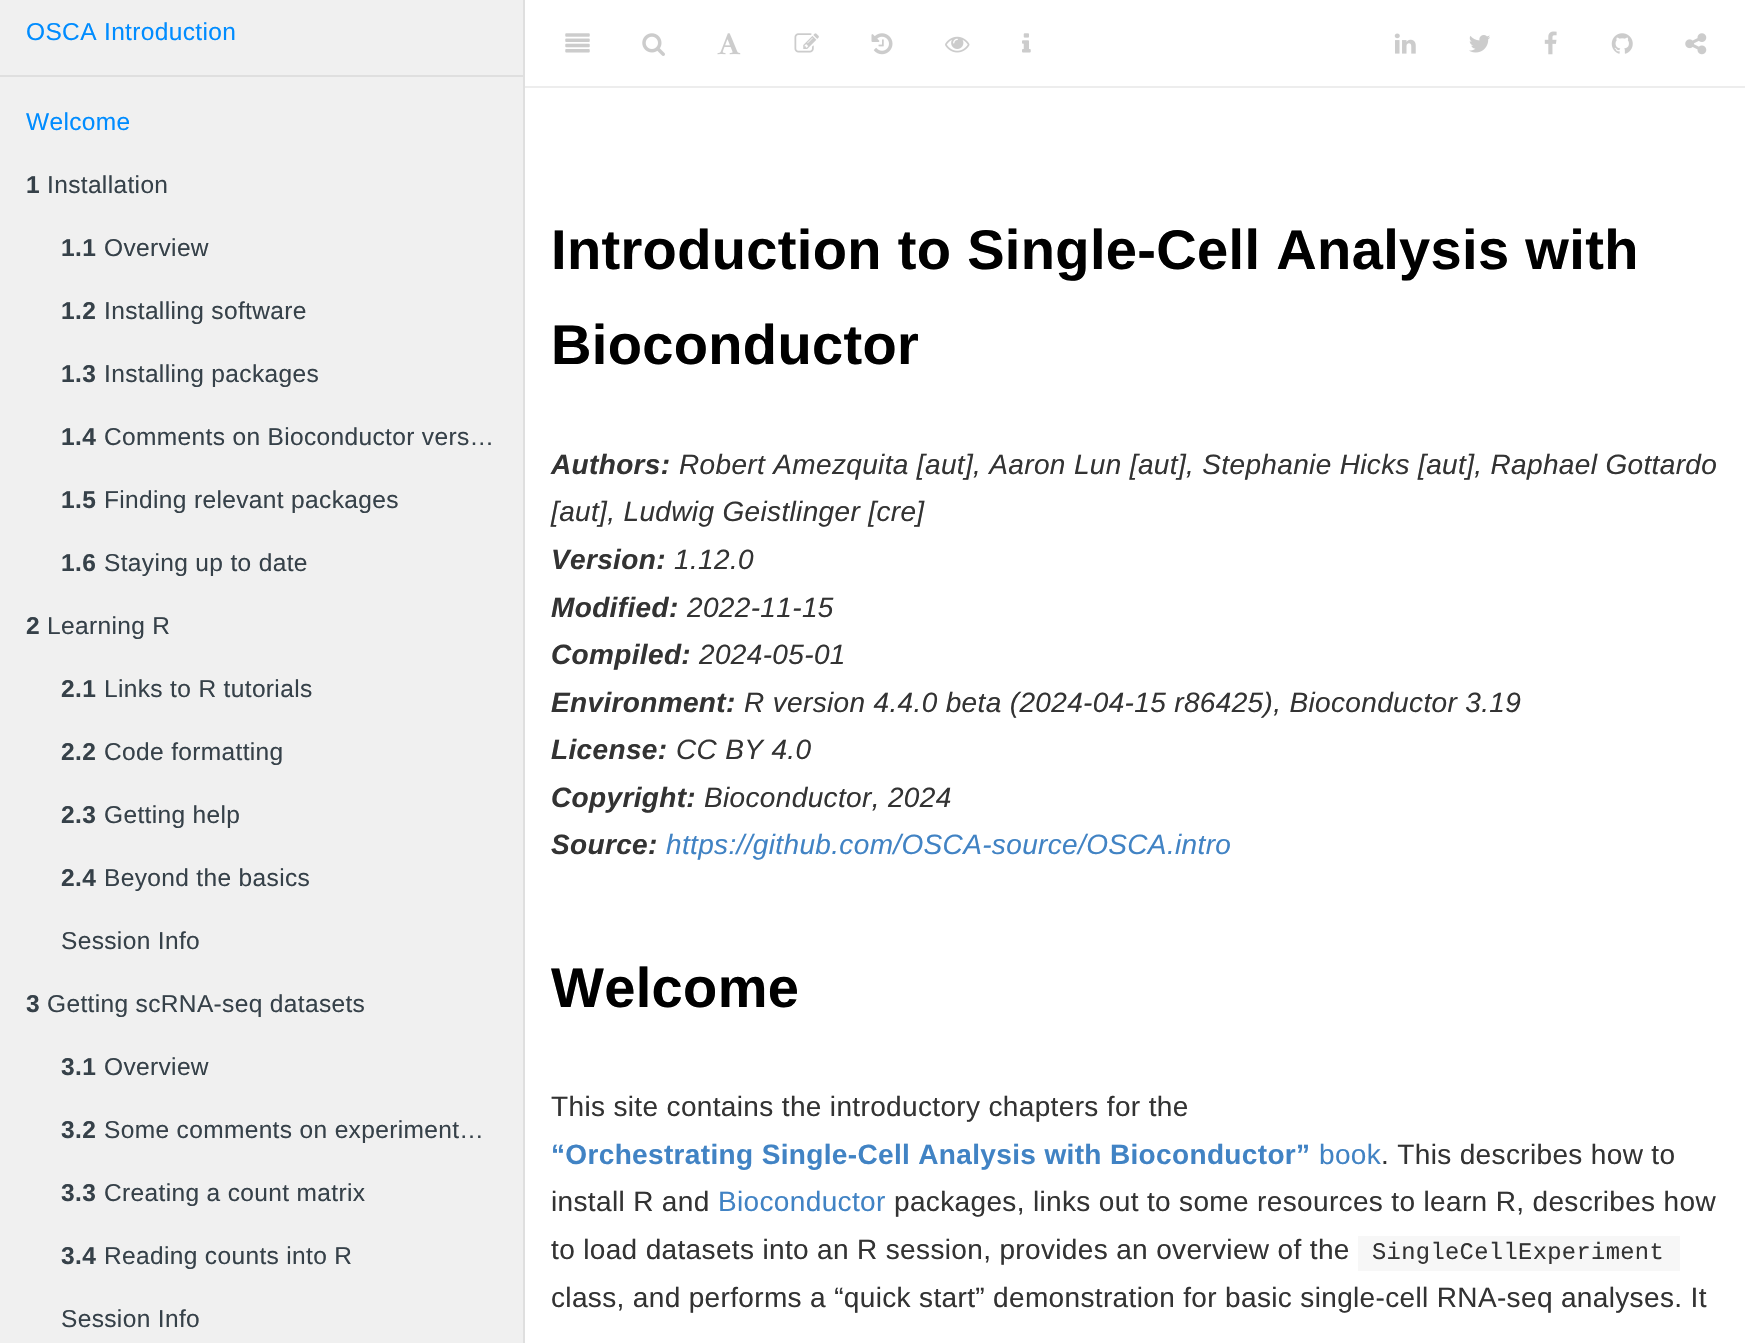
#include "include/core/SkBlurTypes.h"
#include "include/core/SkCanvas.h"
#include "include/core/SkData.h"
#include "include/core/SkFont.h"
#include "include/core/SkFontMgr.h"
#include "include/core/SkImage.h"
#include "include/core/SkMaskFilter.h"
#include "include/core/SkPaint.h"
#include "include/core/SkPathBuilder.h"
#include "include/core/SkTextBlob.h"
#include "include/effects/SkDashPathEffect.h"
#include "include/effects/SkGradientShader.h"
#include "include/utils/SkParsePath.h"

extern sk_sp<SkFontMgr> fontMgr;

void draw(SkCanvas* canvas) {
  SkPaint p;
  p.setAntiAlias(true);
  auto spacedText = [&](const char* s, float x, float y, const SkFont& font, const SkPaint& ink, float letter, float word) {
    std::vector<SkGlyphID> glyphs(font.countText(s, strlen(s), SkTextEncoding::kUTF8));
    std::vector<float> xs(glyphs.size());
    font.textToGlyphs(s, strlen(s), SkTextEncoding::kUTF8, glyphs);
    font.getXPos(glyphs, xs, x);
    float extra = 0;
    for (size_t i = 0; i < glyphs.size(); i++) {
      xs[i] += extra;
      extra += letter + word * (glyphs[i] == font.unicharToGlyph(' '));
    }
    canvas->drawTextBlob(SkTextBlob::MakeFromPosHGlyphs(glyphs, xs, y, font), 0, 0, ink);
  };
  canvas->clear(SK_ColorWHITE);
  p.setColor(SkColorSetRGB(240, 240, 240));
  canvas->drawRect(SkRect::MakeLTRB(0, 0, 523, 1343), p);
  p.setColor(SkColorSetRGB(223, 223, 223));
  canvas->drawRect(SkRect::MakeLTRB(523, 0, 525, 1343), p);
  canvas->drawRect(SkRect::MakeLTRB(0, 75, 523, 77), p);
  p.setColor(SkColorSetRGB(237, 237, 237));
  canvas->drawRect(SkRect::MakeLTRB(525, 86, 1745, 88), p);
  canvas->drawImageRect(SkImages::DeferredFromEncodedData(SkData::MakeFromFileName("images/1.png")), SkRect::MakeLTRB(565, 33, 590, 53), SkSamplingOptions());
  canvas->drawImageRect(SkImages::DeferredFromEncodedData(SkData::MakeFromFileName("images/2.png")), SkRect::MakeLTRB(642, 33, 665, 56), SkSamplingOptions());
  canvas->drawImageRect(SkImages::DeferredFromEncodedData(SkData::MakeFromFileName("images/3.png")), SkRect::MakeLTRB(717, 33, 741, 55), SkSamplingOptions());
  canvas->drawImageRect(SkImages::DeferredFromEncodedData(SkData::MakeFromFileName("images/4.png")), SkRect::MakeLTRB(794, 33, 819, 53), SkSamplingOptions());
  canvas->drawImageRect(SkImages::DeferredFromEncodedData(SkData::MakeFromFileName("images/5.png")), SkRect::MakeLTRB(871, 33, 893, 55), SkSamplingOptions());
  canvas->drawImageRect(SkImages::DeferredFromEncodedData(SkData::MakeFromFileName("images/6.png")), SkRect::MakeLTRB(945, 36, 970, 53), SkSamplingOptions());
  canvas->drawImageRect(SkImages::DeferredFromEncodedData(SkData::MakeFromFileName("images/7.png")), SkRect::MakeLTRB(1022, 33, 1031, 53), SkSamplingOptions());
  canvas->drawImageRect(SkImages::DeferredFromEncodedData(SkData::MakeFromFileName("images/8.png")), SkRect::MakeLTRB(1394, 33, 1416, 54), SkSamplingOptions());
  canvas->drawImageRect(SkImages::DeferredFromEncodedData(SkData::MakeFromFileName("images/9.png")), SkRect::MakeLTRB(1469, 35, 1490, 53), SkSamplingOptions());
  canvas->drawImageRect(SkImages::DeferredFromEncodedData(SkData::MakeFromFileName("images/10.png")), SkRect::MakeLTRB(1544, 31, 1557, 55), SkSamplingOptions());
  canvas->drawImageRect(SkImages::DeferredFromEncodedData(SkData::MakeFromFileName("images/11.png")), SkRect::MakeLTRB(1611, 33, 1633, 54), SkSamplingOptions());
  canvas->drawImageRect(SkImages::DeferredFromEncodedData(SkData::MakeFromFileName("images/12.png")), SkRect::MakeLTRB(1685, 33, 1707, 55), SkSamplingOptions());
  p.setColor(SkColorSetRGB(247, 247, 247));
  canvas->drawRect(SkRect::MakeLTRB(1358, 1236, 1680, 1271), p);
  SkFont font1(fontMgr->matchFamilyStyle("Liberation Sans", SkFontStyle::Normal()), 24.5f);
  font1.setSubpixel(true);
  p.setColor(SkColorSetRGB(0, 140, 255));
  spacedText("OSCA Introduction", 26, 40, font1, p, 0.35f, 0);
  spacedText("Welcome", 26, 130, font1, p, 0.35f, 0);
  SkFont font2(fontMgr->matchFamilyStyle("Liberation Sans", SkFontStyle::Bold()), 24.5f);
  font2.setSubpixel(true);
  p.setColor(SkColorSetRGB(54, 65, 73));
  spacedText("1", 26, 193, font2, p, 0.35f, 0);
  spacedText("Installation", 47, 193, font1, p, 0.35f, 0);
  spacedText("1.1", 61, 256, font2, p, 0.35f, 0);
  spacedText("Overview", 104, 256, font1, p, 0.35f, 0);
  spacedText("1.2", 61, 319, font2, p, 0.35f, 0);
  spacedText("Installing software", 104, 319, font1, p, 0.35f, 0);
  spacedText("1.3", 61, 382, font2, p, 0.35f, 0);
  spacedText("Installing packages", 104, 382, font1, p, 0.35f, 0);
  spacedText("1.4", 61, 445, font2, p, 0.35f, 0);
  spacedText("Comments on Bioconductor vers…", 104, 445, font1, p, 0.35f, 0);
  spacedText("1.5", 61, 508, font2, p, 0.35f, 0);
  spacedText("Finding relevant packages", 104, 508, font1, p, 0.35f, 0);
  spacedText("1.6", 61, 571, font2, p, 0.35f, 0);
  spacedText("Staying up to date", 104, 571, font1, p, 0.35f, 0);
  spacedText("2", 26, 634, font2, p, 0.35f, 0);
  spacedText("Learning R", 47, 634, font1, p, 0.35f, 0);
  spacedText("2.1", 61, 697, font2, p, 0.35f, 0);
  spacedText("Links to R tutorials", 104, 697, font1, p, 0.35f, 0);
  spacedText("2.2", 61, 760, font2, p, 0.35f, 0);
  spacedText("Code formatting", 104, 760, font1, p, 0.35f, 0);
  spacedText("2.3", 61, 823, font2, p, 0.35f, 0);
  spacedText("Getting help", 104, 823, font1, p, 0.35f, 0);
  spacedText("2.4", 61, 886, font2, p, 0.35f, 0);
  spacedText("Beyond the basics", 104, 886, font1, p, 0.35f, 0);
  spacedText("Session Info", 61, 949, font1, p, 0.35f, 0);
  spacedText("3", 26, 1012, font2, p, 0.35f, 0);
  spacedText("Getting scRNA-seq datasets", 47, 1012, font1, p, 0.35f, 0);
  spacedText("3.1", 61, 1075, font2, p, 0.35f, 0);
  spacedText("Overview", 104, 1075, font1, p, 0.35f, 0);
  spacedText("3.2", 61, 1138, font2, p, 0.35f, 0);
  spacedText("Some comments on experiment…", 104, 1138, font1, p, 0.35f, 0);
  spacedText("3.3", 61, 1201, font2, p, 0.35f, 0);
  spacedText("Creating a count matrix", 104, 1201, font1, p, 0.35f, 0);
  spacedText("3.4", 61, 1264, font2, p, 0.35f, 0);
  spacedText("Reading counts into R", 104, 1264, font1, p, 0.35f, 0);
  spacedText("Session Info", 61, 1327, font1, p, 0.35f, 0);
  SkFont font3(fontMgr->matchFamilyStyle("Liberation Sans", SkFontStyle::Bold()), 56);
  font3.setSubpixel(true);
  p.setColor(SK_ColorBLACK);
  spacedText("Introduction to Single-Cell Analysis with", 551, 269, font3, p, 0.35f, 0);
  spacedText("Bioconductor", 551, 364, font3, p, 0.35f, 0);
  SkFont font4(fontMgr->matchFamilyStyle("Liberation Sans", SkFontStyle::BoldItalic()), 28);
  font4.setSubpixel(true);
  p.setColor(SkColorSetRGB(51, 51, 51));
  spacedText("Authors:", 551, 474, font4, p, 0.35f, 0);
  SkFont font5(fontMgr->matchFamilyStyle("Liberation Sans", SkFontStyle::Italic()), 28);
  font5.setSubpixel(true);
  spacedText("Robert Amezquita [aut], Aaron Lun [aut], Stephanie Hicks [aut], Raphael Gottardo", 679, 474, font5, p, 0.35f, 0);
  spacedText("[aut], Ludwig Geistlinger [cre]", 551, 521, font5, p, 0.35f, 0);
  spacedText("Version:", 551, 569, font4, p, 0.35f, 0);
  spacedText("1.12.0", 674, 569, font5, p, 0.35f, 0);
  spacedText("Modified:", 551, 617, font4, p, 0.35f, 0);
  spacedText("2022-11-15", 687, 617, font5, p, 0.35f, 0);
  spacedText("Compiled:", 551, 664, font4, p, 0.35f, 0);
  spacedText("2024-05-01", 699, 664, font5, p, 0.35f, 0);
  spacedText("Environment:", 551, 712, font4, p, 0.35f, 0);
  spacedText("R version 4.4.0 beta (2024-04-15 r86425), Bioconductor 3.19", 744, 712, font5, p, 0.35f, 0);
  spacedText("License:", 551, 759, font4, p, 0.35f, 0);
  spacedText("CC BY 4.0", 676, 759, font5, p, 0.35f, 0);
  spacedText("Copyright:", 551, 807, font4, p, 0.35f, 0);
  spacedText("Bioconductor, 2024", 704, 807, font5, p, 0.35f, 0);
  spacedText("Source:", 551, 854, font4, p, 0.35f, 0);
  p.setColor(SkColorSetRGB(65, 131, 196));
  spacedText("https://github.com/OSCA-source/OSCA.intro", 666, 854, font5, p, 0.35f, 0);
  p.setColor(SK_ColorBLACK);
  spacedText("Welcome", 551, 1007, font3, p, 0.35f, 0);
  SkFont font6(fontMgr->matchFamilyStyle("Liberation Sans", SkFontStyle::Normal()), 28);
  font6.setSubpixel(true);
  p.setColor(SkColorSetRGB(51, 51, 51));
  spacedText("This site contains the introductory chapters for the", 551, 1116, font6, p, 0.35f, 0);
  SkFont font7(fontMgr->matchFamilyStyle("Liberation Sans", SkFontStyle::Bold()), 28);
  font7.setSubpixel(true);
  p.setColor(SkColorSetRGB(65, 131, 196));
  spacedText("“Orchestrating Single-Cell Analysis with Bioconductor”", 551, 1164, font7, p, 0.35f, 0);
  spacedText("book", 1319, 1164, font6, p, 0.35f, 0);
  p.setColor(SkColorSetRGB(51, 51, 51));
  spacedText(". This describes how to", 1381, 1164, font6, p, 0.35f, 0);
  spacedText("install R and", 551, 1211, font6, p, 0.35f, 0);
  p.setColor(SkColorSetRGB(65, 131, 196));
  spacedText("Bioconductor", 718, 1211, font6, p, 0.35f, 0);
  p.setColor(SkColorSetRGB(51, 51, 51));
  spacedText("packages, links out to some resources to learn R, describes how", 894, 1211, font6, p, 0.35f, 0);
  spacedText("to load datasets into an R session, provides an overview of the", 551, 1259, font6, p, 0.35f, 0);
  SkFont font8(fontMgr->matchFamilyStyle("Liberation Mono", SkFontStyle::Normal()), 23.75f);
  font8.setSubpixel(true);
  spacedText("SingleCellExperiment", 1372, 1259, font8, p, 0.35f, 0);
  spacedText("class, and performs a “quick start” demonstration for basic single-cell RNA-seq analyses. It", 551, 1307, font6, p, 0.35f, 0);
}
